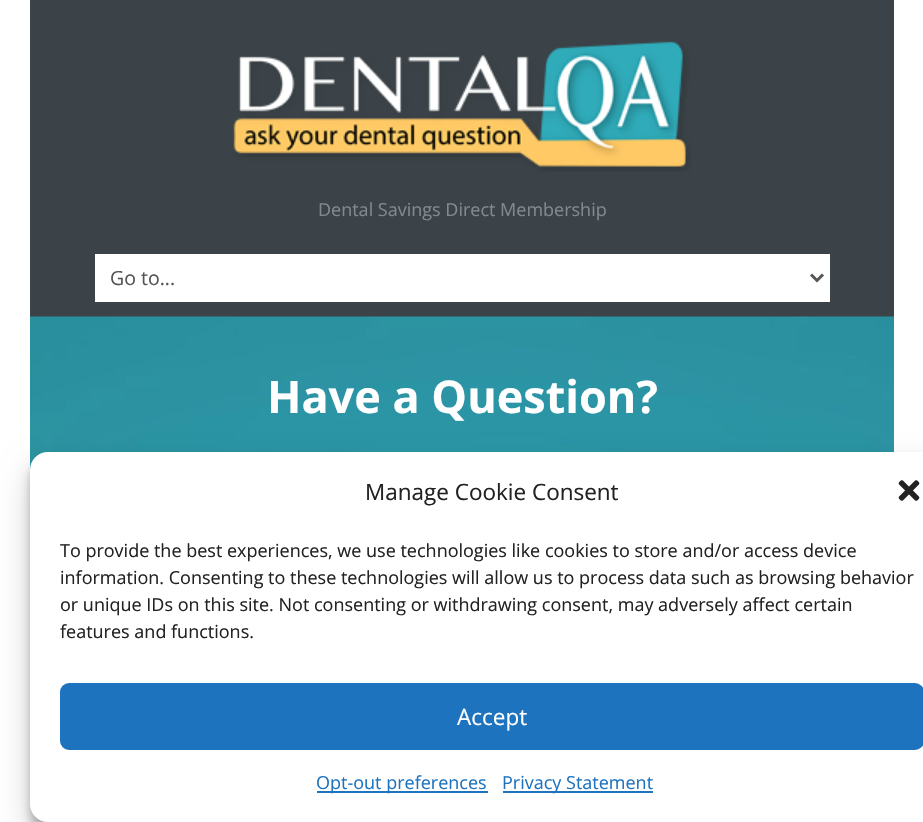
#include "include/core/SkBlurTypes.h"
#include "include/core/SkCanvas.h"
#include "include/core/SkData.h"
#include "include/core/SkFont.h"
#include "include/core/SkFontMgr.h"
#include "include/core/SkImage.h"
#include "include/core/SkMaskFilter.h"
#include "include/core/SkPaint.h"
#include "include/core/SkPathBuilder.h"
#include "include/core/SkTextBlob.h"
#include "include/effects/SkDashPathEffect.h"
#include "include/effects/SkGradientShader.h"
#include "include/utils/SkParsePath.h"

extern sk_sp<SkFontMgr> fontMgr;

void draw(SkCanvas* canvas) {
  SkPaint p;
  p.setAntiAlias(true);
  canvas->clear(SK_ColorWHITE);
  p.setColor(SkColorSetRGB(59, 67, 72));
  canvas->drawRect(SkRect::MakeLTRB(30, 0, 894, 317), p);
  canvas->drawImageRect(SkImages::DeferredFromEncodedData(SkData::MakeFromFileName("images/1.png")), SkRect::MakeLTRB(233, 41, 691, 172), SkSamplingOptions());
  p.setColor(SK_ColorWHITE);
  canvas->drawRect(SkRect::MakeLTRB(95, 254, 830, 302), p);
  p.setStyle(SkPaint::kStroke_Style);
  p.setStrokeWidth(3);
  p.setColor(SkColorSetRGB(85, 85, 85));
  canvas->drawPath(SkPathBuilder().moveTo(811, 274.5f).lineTo(817, 280.5f).lineTo(823, 274.5f).detach(), p);
  canvas->drawImageRect(SkImages::DeferredFromEncodedData(SkData::MakeFromFileName("images/2.png")), SkRect::MakeLTRB(30, 316, 894, 470), SkSamplingOptions());
  p.setStyle(SkPaint::kFill_Style);
  p.setColor(SkColorSetARGB(59, 0, 0, 0));
  p.setMaskFilter(SkMaskFilter::MakeBlur(kNormal_SkBlurStyle, 4.5f));
  canvas->drawRoundRect(SkRect::MakeLTRB(30, 461, 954, 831), 18, 18, p);
  p.setMaskFilter(nullptr);
  p.setColor(SkColorSetARGB(48, 0, 0, 0));
  p.setMaskFilter(SkMaskFilter::MakeBlur(kNormal_SkBlurStyle, 15));
  canvas->drawRoundRect(SkRect::MakeLTRB(30, 467, 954, 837), 18, 18, p);
  p.setMaskFilter(nullptr);
  p.setColor(SK_ColorWHITE);
  canvas->drawRoundRect(SkRect::MakeLTRB(30, 452, 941, 822), 18, 18, p);
  canvas->drawImageRect(SkImages::DeferredFromEncodedData(SkData::MakeFromFileName("images/3.png")), SkRect::MakeLTRB(898, 480, 920, 501), SkSamplingOptions());
  p.setColor(SkColorSetRGB(30, 115, 190));
  canvas->drawRoundRect(SkRect::MakeLTRB(61, 684, 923, 749), 8, 8, p);
  p.setStyle(SkPaint::kStroke_Style);
  p.setStrokeWidth(2);
  canvas->drawRoundRect(SkRect::MakeLTRB(61, 684, 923, 749), 8, 8, p);
  p.setStyle(SkPaint::kFill_Style);
  canvas->drawRect(SkRect::MakeLTRB(317, 791, 488, 793), p);
  canvas->drawRect(SkRect::MakeLTRB(503, 791, 653, 793), p);
  SkFont font1(fontMgr->matchFamilyStyle("Open Sans", SkFontStyle::Normal()), 18);
  font1.setSubpixel(true);
  p.setColor(SkColorSetRGB(129, 138, 144));
  canvas->drawString("Dental Savings Direct Membership", 318, 216, font1, p);
  SkFont font2(fontMgr->matchFamilyStyle("Open Sans", SkFontStyle::Normal()), 19.5f);
  font2.setSubpixel(true);
  p.setColor(SkColorSetRGB(85, 85, 85));
  canvas->drawString("Go to...", 110, 285, font2, p);
  SkFont font3(fontMgr->matchFamilyStyle("Open Sans", SkFontStyle::Bold()), 45);
  font3.setSubpixel(true);
  p.setColor(SK_ColorWHITE);
  canvas->drawString("Have a Question?", 267, 413, font3, p);
  SkFont font4(fontMgr->matchFamilyStyle("Open Sans", SkFontStyle::Normal()), 22.5f);
  font4.setSubpixel(true);
  p.setColor(SkColorSetRGB(34, 34, 34));
  canvas->drawString("Manage Cookie Consent", 365, 500, font4, p);
  canvas->drawString("To provide the best experiences, we use technologies like cookies to store and/or access device", 60, 557, font1, p);
  canvas->drawString("information. Consenting to these technologies will allow us to process data such as browsing behavior", 60, 584, font1, p);
  canvas->drawString("or unique IDs on this site. Not consenting or withdrawing consent, may adversely affect certain", 60, 611, font1, p);
  canvas->drawString("features and functions.", 60, 638, font1, p);
  p.setColor(SK_ColorWHITE);
  canvas->drawString("Accept", 457, 725, font4, p);
  p.setColor(SkColorSetRGB(30, 115, 190));
  canvas->drawString("Opt-out preferences", 316, 789, font1, p);
  canvas->drawString("Privacy Statement", 502, 789, font1, p);
}
